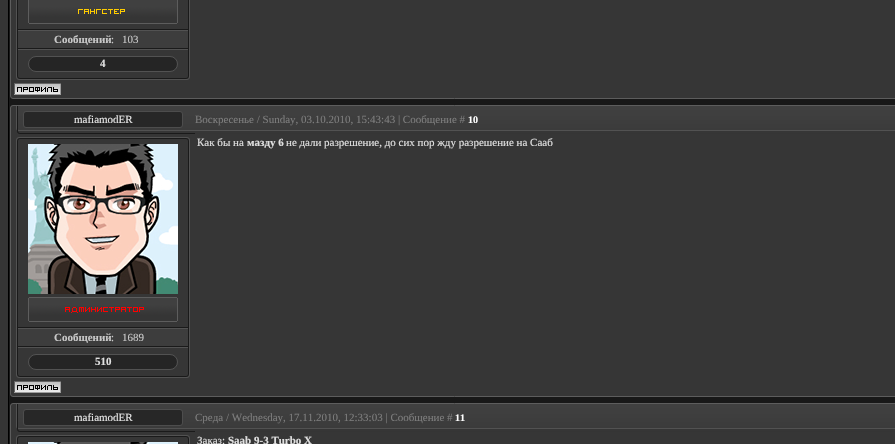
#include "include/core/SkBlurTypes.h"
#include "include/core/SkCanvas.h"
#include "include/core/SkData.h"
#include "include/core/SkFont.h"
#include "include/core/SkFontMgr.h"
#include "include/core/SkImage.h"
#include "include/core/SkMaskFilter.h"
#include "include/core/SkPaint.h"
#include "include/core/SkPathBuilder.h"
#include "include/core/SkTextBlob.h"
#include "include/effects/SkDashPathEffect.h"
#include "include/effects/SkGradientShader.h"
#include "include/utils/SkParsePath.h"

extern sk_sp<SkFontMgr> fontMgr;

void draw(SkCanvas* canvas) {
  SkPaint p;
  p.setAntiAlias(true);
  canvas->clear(SkColorSetRGB(53, 53, 53));
  p.setStyle(SkPaint::kStroke_Style);
  p.setStrokeWidth(1);
  p.setColor(SK_ColorBLACK);
  canvas->drawRect(SkRect::MakeLTRB(8.5f, -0.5f, 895.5f, 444.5f), p);
  p.setStyle(SkPaint::kFill_Style);
  p.setColor(SkColorSetRGB(24, 24, 24));
  canvas->drawRect(SkRect::MakeLTRB(9, 0, 895, 444), p);
  p.setColor(SkColorSetRGB(54, 54, 54));
  canvas->drawRoundRect(SkRect::MakeLTRB(10.5f, -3.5f, 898.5f, 98.5f), 2.5f, 2.5f, p);
  p.setStyle(SkPaint::kStroke_Style);
  p.setColor(SkColorSetRGB(93, 93, 93));
  canvas->drawRoundRect(SkRect::MakeLTRB(10.5f, -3.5f, 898.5f, 98.5f), 2.5f, 2.5f, p);
  p.setColor(SkColorSetRGB(82, 82, 82));
  canvas->drawRoundRect(SkRect::MakeLTRB(16.5f, -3.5f, 189.5f, 79.5f), 2.5f, 2.5f, p);
  p.setColor(SkColorSetRGB(26, 26, 26));
  canvas->drawRoundRect(SkRect::MakeLTRB(17.5f, -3.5f, 188.5f, 78.5f), 2.5f, 2.5f, p);
  canvas->drawImageRect(SkImages::DeferredFromEncodedData(SkData::MakeFromFileName("images/1.png")), SkRect::MakeLTRB(28, 0, 178, 24), SkSamplingOptions());
  p.setStyle(SkPaint::kFill_Style);
  canvas->drawRect(SkRect::MakeLTRB(18, 29, 188, 30), p);
  p.setColor(SkColorSetRGB(82, 82, 82));
  canvas->drawRect(SkRect::MakeLTRB(18, 30, 188, 31), p);
  p.setColor(SkColorSetRGB(61, 61, 61));
  canvas->drawRect(SkRect::MakeLTRB(18, 31, 188, 48), p);
  p.setColor(SkColorSetRGB(26, 26, 26));
  canvas->drawRect(SkRect::MakeLTRB(18, 48, 188, 49), p);
  p.setColor(SkColorSetRGB(82, 82, 82));
  canvas->drawRect(SkRect::MakeLTRB(18, 49, 188, 50), p);
  p.setColor(SkColorSetRGB(37, 37, 37));
  canvas->drawRoundRect(SkRect::MakeLTRB(28.5f, 56.5f, 177.5f, 71.5f), 7.5f, 7.5f, p);
  p.setStyle(SkPaint::kStroke_Style);
  p.setColor(SkColorSetRGB(82, 82, 82));
  canvas->drawRoundRect(SkRect::MakeLTRB(28.5f, 56.5f, 177.5f, 71.5f), 7.5f, 7.5f, p);
  canvas->drawImageRect(SkImages::DeferredFromEncodedData(SkData::MakeFromFileName("images/2.png")), SkRect::MakeLTRB(14, 83, 61, 95), SkSamplingOptions());
  p.setStyle(SkPaint::kFill_Style);
  p.setColor(SkColorSetRGB(54, 54, 54));
  canvas->drawRoundRect(SkRect::MakeLTRB(10.5f, 105.5f, 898.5f, 396.5f), 2.5f, 2.5f, p);
  p.setStyle(SkPaint::kStroke_Style);
  p.setColor(SkColorSetRGB(93, 93, 93));
  canvas->drawRoundRect(SkRect::MakeLTRB(10.5f, 105.5f, 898.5f, 396.5f), 2.5f, 2.5f, p);
  canvas->drawImageRect(SkImages::DeferredFromEncodedData(SkData::MakeFromFileName("images/3.png")), SkRect::MakeLTRB(16, 106, 895, 131), SkSamplingOptions());
  p.setStyle(SkPaint::kFill_Style);
  p.setColor(SkColorSetRGB(82, 82, 82));
  canvas->drawPath(SkPathBuilder(SkPathFillType::kEvenOdd).moveTo(16, 106).lineTo(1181, 106).lineTo(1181, 128).cubicTo(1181, 130, 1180, 131, 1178, 131).lineTo(19, 131).cubicTo(17, 131, 16, 130, 16, 128).close().moveTo(17, 106).lineTo(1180, 106).lineTo(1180, 128).cubicTo(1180, 129, 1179, 130, 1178, 130).lineTo(19, 130).cubicTo(18, 130, 17, 129, 17, 128).close().detach(), p);
  p.setColor(SkColorSetRGB(26, 26, 26));
  canvas->drawPath(SkPathBuilder(SkPathFillType::kEvenOdd).moveTo(17, 106).lineTo(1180, 106).lineTo(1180, 131).cubicTo(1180, 133, 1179, 134, 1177, 134).lineTo(20, 134).cubicTo(18, 134, 17, 133, 17, 131).close().moveTo(18, 106).lineTo(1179, 106).lineTo(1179, 131).cubicTo(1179, 132, 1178, 133, 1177, 133).lineTo(20, 133).cubicTo(19, 133, 18, 132, 18, 131).close().detach(), p);
  p.setColor(SkColorSetRGB(39, 39, 39));
  canvas->drawRoundRect(SkRect::MakeLTRB(23.5f, 111.5f, 182.5f, 127.5f), 2.5f, 2.5f, p);
  p.setStyle(SkPaint::kStroke_Style);
  p.setColor(SkColorSetRGB(77, 77, 77));
  canvas->drawRoundRect(SkRect::MakeLTRB(23.5f, 111.5f, 182.5f, 127.5f), 2.5f, 2.5f, p);
  p.setStyle(SkPaint::kFill_Style);
  p.setColor(SkColorSetRGB(53, 53, 53));
  canvas->drawRect(SkRect::MakeLTRB(195, 133, 895, 134), p);
  p.setStyle(SkPaint::kStroke_Style);
  p.setColor(SkColorSetRGB(82, 82, 82));
  canvas->drawRoundRect(SkRect::MakeLTRB(16.5f, 137.5f, 189.5f, 377.5f), 2.5f, 2.5f, p);
  p.setColor(SkColorSetRGB(26, 26, 26));
  canvas->drawRoundRect(SkRect::MakeLTRB(17.5f, 138.5f, 188.5f, 376.5f), 2.5f, 2.5f, p);
  canvas->drawImageRect(SkImages::DeferredFromEncodedData(SkData::MakeFromFileName("images/4.png")), SkRect::MakeLTRB(28, 144, 178, 294), SkSamplingOptions());
  canvas->drawImageRect(SkImages::DeferredFromEncodedData(SkData::MakeFromFileName("images/5.png")), SkRect::MakeLTRB(28, 297, 178, 322), SkSamplingOptions());
  p.setStyle(SkPaint::kFill_Style);
  canvas->drawRect(SkRect::MakeLTRB(18, 327, 188, 328), p);
  p.setColor(SkColorSetRGB(82, 82, 82));
  canvas->drawRect(SkRect::MakeLTRB(18, 328, 188, 329), p);
  p.setColor(SkColorSetRGB(61, 61, 61));
  canvas->drawRect(SkRect::MakeLTRB(18, 329, 188, 346), p);
  p.setColor(SkColorSetRGB(26, 26, 26));
  canvas->drawRect(SkRect::MakeLTRB(18, 346, 188, 347), p);
  p.setColor(SkColorSetRGB(82, 82, 82));
  canvas->drawRect(SkRect::MakeLTRB(18, 347, 188, 348), p);
  p.setColor(SkColorSetRGB(37, 37, 37));
  canvas->drawRoundRect(SkRect::MakeLTRB(28.5f, 354.5f, 177.5f, 369.5f), 7.5f, 7.5f, p);
  p.setStyle(SkPaint::kStroke_Style);
  p.setColor(SkColorSetRGB(82, 82, 82));
  canvas->drawRoundRect(SkRect::MakeLTRB(28.5f, 354.5f, 177.5f, 369.5f), 7.5f, 7.5f, p);
  canvas->drawImageRect(SkImages::DeferredFromEncodedData(SkData::MakeFromFileName("images/2.png")), SkRect::MakeLTRB(14, 381, 61, 393), SkSamplingOptions());
  p.setStyle(SkPaint::kFill_Style);
  p.setColor(SkColorSetRGB(54, 54, 54));
  canvas->drawRoundRect(SkRect::MakeLTRB(10.5f, 403.5f, 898.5f, 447.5f), 2.5f, 2.5f, p);
  p.setStyle(SkPaint::kStroke_Style);
  p.setColor(SkColorSetRGB(93, 93, 93));
  canvas->drawRoundRect(SkRect::MakeLTRB(10.5f, 403.5f, 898.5f, 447.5f), 2.5f, 2.5f, p);
  canvas->drawImageRect(SkImages::DeferredFromEncodedData(SkData::MakeFromFileName("images/3.png")), SkRect::MakeLTRB(16, 404, 895, 429), SkSamplingOptions());
  p.setStyle(SkPaint::kFill_Style);
  p.setColor(SkColorSetRGB(82, 82, 82));
  canvas->drawPath(SkPathBuilder(SkPathFillType::kEvenOdd).moveTo(16, 404).lineTo(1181, 404).lineTo(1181, 426).cubicTo(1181, 428, 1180, 429, 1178, 429).lineTo(19, 429).cubicTo(17, 429, 16, 428, 16, 426).close().moveTo(17, 404).lineTo(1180, 404).lineTo(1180, 426).cubicTo(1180, 427, 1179, 428, 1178, 428).lineTo(19, 428).cubicTo(18, 428, 17, 427, 17, 426).close().detach(), p);
  p.setColor(SkColorSetRGB(26, 26, 26));
  canvas->drawPath(SkPathBuilder(SkPathFillType::kEvenOdd).moveTo(17, 404).lineTo(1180, 404).lineTo(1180, 429).cubicTo(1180, 431, 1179, 432, 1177, 432).lineTo(20, 432).cubicTo(18, 432, 17, 431, 17, 429).close().moveTo(18, 404).lineTo(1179, 404).lineTo(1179, 429).cubicTo(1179, 430, 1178, 431, 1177, 431).lineTo(20, 431).cubicTo(19, 431, 18, 430, 18, 429).close().detach(), p);
  p.setColor(SkColorSetRGB(39, 39, 39));
  canvas->drawRoundRect(SkRect::MakeLTRB(23.5f, 409.5f, 182.5f, 425.5f), 2.5f, 2.5f, p);
  p.setStyle(SkPaint::kStroke_Style);
  p.setColor(SkColorSetRGB(77, 77, 77));
  canvas->drawRoundRect(SkRect::MakeLTRB(23.5f, 409.5f, 182.5f, 425.5f), 2.5f, 2.5f, p);
  p.setColor(SkColorSetRGB(82, 82, 82));
  canvas->drawRoundRect(SkRect::MakeLTRB(16.5f, 435.5f, 189.5f, 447.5f), 2.5f, 2.5f, p);
  p.setColor(SkColorSetRGB(26, 26, 26));
  canvas->drawRoundRect(SkRect::MakeLTRB(17.5f, 436.5f, 188.5f, 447.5f), 2.5f, 2.5f, p);
  canvas->drawImageRect(SkImages::DeferredFromEncodedData(SkData::MakeFromFileName("images/6.png")), SkRect::MakeLTRB(28, 442, 178, 444), SkSamplingOptions());
  p.setStyle(SkPaint::kFill_Style);
  p.setColor(SkColorSetRGB(53, 53, 53));
  canvas->drawRect(SkRect::MakeLTRB(195, 431, 895, 432), p);
  SkFont font1(fontMgr->matchFamilyStyle("Liberation Serif", SkFontStyle::Bold()), 11);
  font1.setSubpixel(true);
  p.setColor(SkColorSetRGB(200, 200, 200));
  canvas->drawString("Сообщений", 54, 43, font1, p);
  SkFont font2(fontMgr->matchFamilyStyle("Liberation Serif", SkFontStyle::Normal()), 11);
  font2.setSubpixel(true);
  canvas->drawString(":", 111, 43, font2, p);
  canvas->drawString("103", 122, 43, font2, p);
  p.setColor(SkColorSetRGB(224, 224, 224));
  canvas->drawString("4", 100, 67, font1, p);
  p.setColor(SkColorSetRGB(232, 232, 232));
  canvas->drawString("mafiamodER", 74, 123, font2, p);
  p.setColor(SkColorSetRGB(125, 125, 125));
  canvas->drawString("Воскресенье / Sunday, 03.10.2010, 15:43:43 | Сообщение #", 195, 123, font2, p);
  SkFont font3(fontMgr->matchFamilyStyle("Liberation Serif", SkFontStyle::Bold()), 10);
  font3.setSubpixel(true);
  p.setColor(SK_ColorWHITE);
  canvas->drawString("10", 468, 123, font3, p);
  p.setColor(SkColorSetRGB(224, 224, 224));
  canvas->drawString("Как бы на", 197, 146, font2, p);
  canvas->drawString("мазду 6", 247, 146, font1, p);
  canvas->drawString("не дали разрешение, до сих пор жду разрешение на Сааб", 286, 146, font2, p);
  p.setColor(SkColorSetRGB(200, 200, 200));
  canvas->drawString("Сообщений", 54, 341, font1, p);
  canvas->drawString(":", 111, 341, font2, p);
  canvas->drawString("1689", 122, 341, font2, p);
  p.setColor(SkColorSetRGB(224, 224, 224));
  canvas->drawString("510", 95, 365, font1, p);
  p.setColor(SkColorSetRGB(232, 232, 232));
  canvas->drawString("mafiamodER", 74, 421, font2, p);
  p.setColor(SkColorSetRGB(125, 125, 125));
  canvas->drawString("Среда / Wednesday, 17.11.2010, 12:33:03 | Сообщение #", 195, 421, font2, p);
  p.setColor(SK_ColorWHITE);
  canvas->drawString("11", 455, 421, font3, p);
  p.setColor(SkColorSetRGB(224, 224, 224));
  canvas->drawString("Заказ:", 197, 444, font2, p);
  canvas->drawString("Saab 9-3 Turbo X", 228, 444, font1, p);
}
